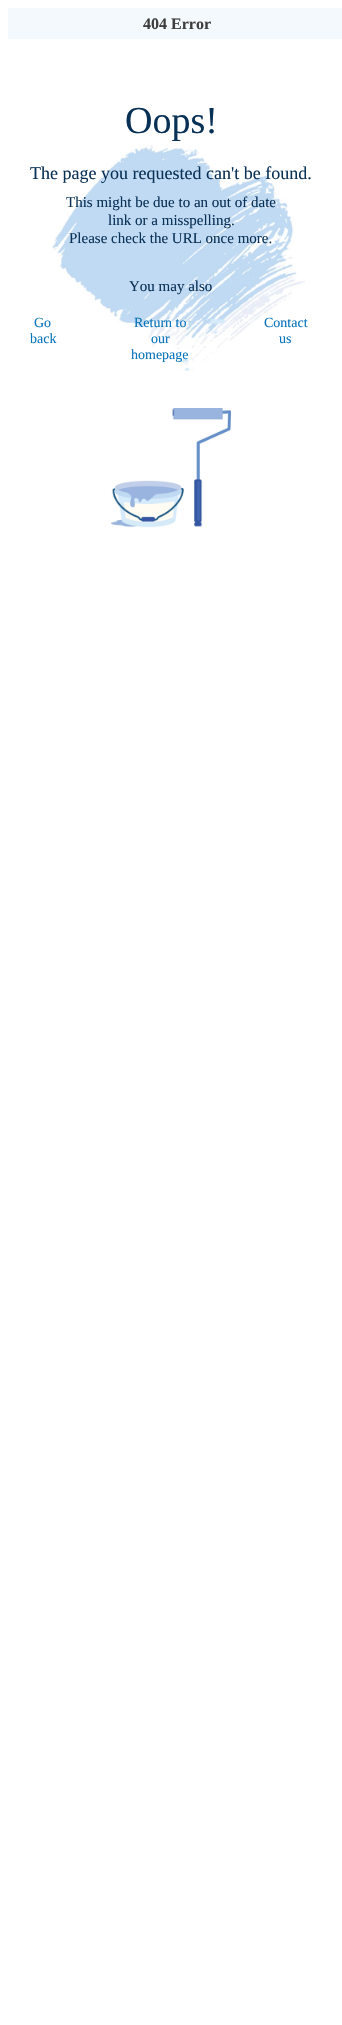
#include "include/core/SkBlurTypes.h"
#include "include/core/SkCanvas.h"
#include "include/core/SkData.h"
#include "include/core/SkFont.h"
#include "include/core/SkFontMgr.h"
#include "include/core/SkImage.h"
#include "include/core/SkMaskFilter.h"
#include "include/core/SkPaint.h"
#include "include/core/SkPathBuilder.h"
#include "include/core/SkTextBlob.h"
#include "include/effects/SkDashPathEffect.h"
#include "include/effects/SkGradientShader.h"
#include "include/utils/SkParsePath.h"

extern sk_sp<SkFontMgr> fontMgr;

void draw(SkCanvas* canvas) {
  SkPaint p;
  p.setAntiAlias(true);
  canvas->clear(SK_ColorWHITE);
  p.setColor(SkColorSetRGB(244, 249, 254));
  canvas->drawRect(SkRect::MakeLTRB(8, 8, 342, 39), p);
  canvas->drawImageRect(SkImages::DeferredFromEncodedData(SkData::MakeFromFileName("images/1.png")), SkRect::MakeLTRB(52, 145, 305, 371), SkSamplingOptions());
  canvas->drawImageRect(SkImages::DeferredFromEncodedData(SkData::MakeFromFileName("images/2.png")), SkRect::MakeLTRB(111, 408, 231, 528), SkSamplingOptions());
  SkFont font1(fontMgr->matchFamilyStyle("Liberation Serif", SkFontStyle::Bold()), 16);
  font1.setSubpixel(true);
  p.setColor(SkColorSetRGB(62, 62, 62));
  canvas->drawString("404 Error", 143, 29, font1, p);
  SkFont font2(fontMgr->matchFamilyStyle("Liberation Serif", SkFontStyle::Normal()), 38);
  font2.setSubpixel(true);
  p.setColor(SkColorSetRGB(9, 48, 85));
  canvas->drawString("Oops!", 125, 133, font2, p);
  SkFont font3(fontMgr->matchFamilyStyle("Liberation Serif", SkFontStyle::Normal()), 18);
  font3.setSubpixel(true);
  canvas->drawString("The page you requested can't be found.", 30, 179, font3, p);
  SkFont font4(fontMgr->matchFamilyStyle("Liberation Serif", SkFontStyle::Normal()), 15);
  font4.setSubpixel(true);
  canvas->drawString("This might be due to an out of date", 66, 207, font4, p);
  canvas->drawString("link or a misspelling.", 108, 225, font4, p);
  canvas->drawString("Please check the URL once more.", 69, 243, font4, p);
  canvas->drawString("You may also", 129, 291, font4, p);
  SkFont font5(fontMgr->matchFamilyStyle("Liberation Serif", SkFontStyle::Normal()), 14);
  font5.setSubpixel(true);
  p.setColor(SkColorSetRGB(7, 115, 188));
  canvas->drawString("Go", 34, 327, font5, p);
  canvas->drawString("back", 30, 343, font5, p);
  canvas->drawString("Return to", 134, 327, font5, p);
  canvas->drawString("our", 151, 343, font5, p);
  canvas->drawString("homepage", 131, 359, font5, p);
  canvas->drawString("Contact", 264, 327, font5, p);
  canvas->drawString("us", 279, 343, font5, p);
}
